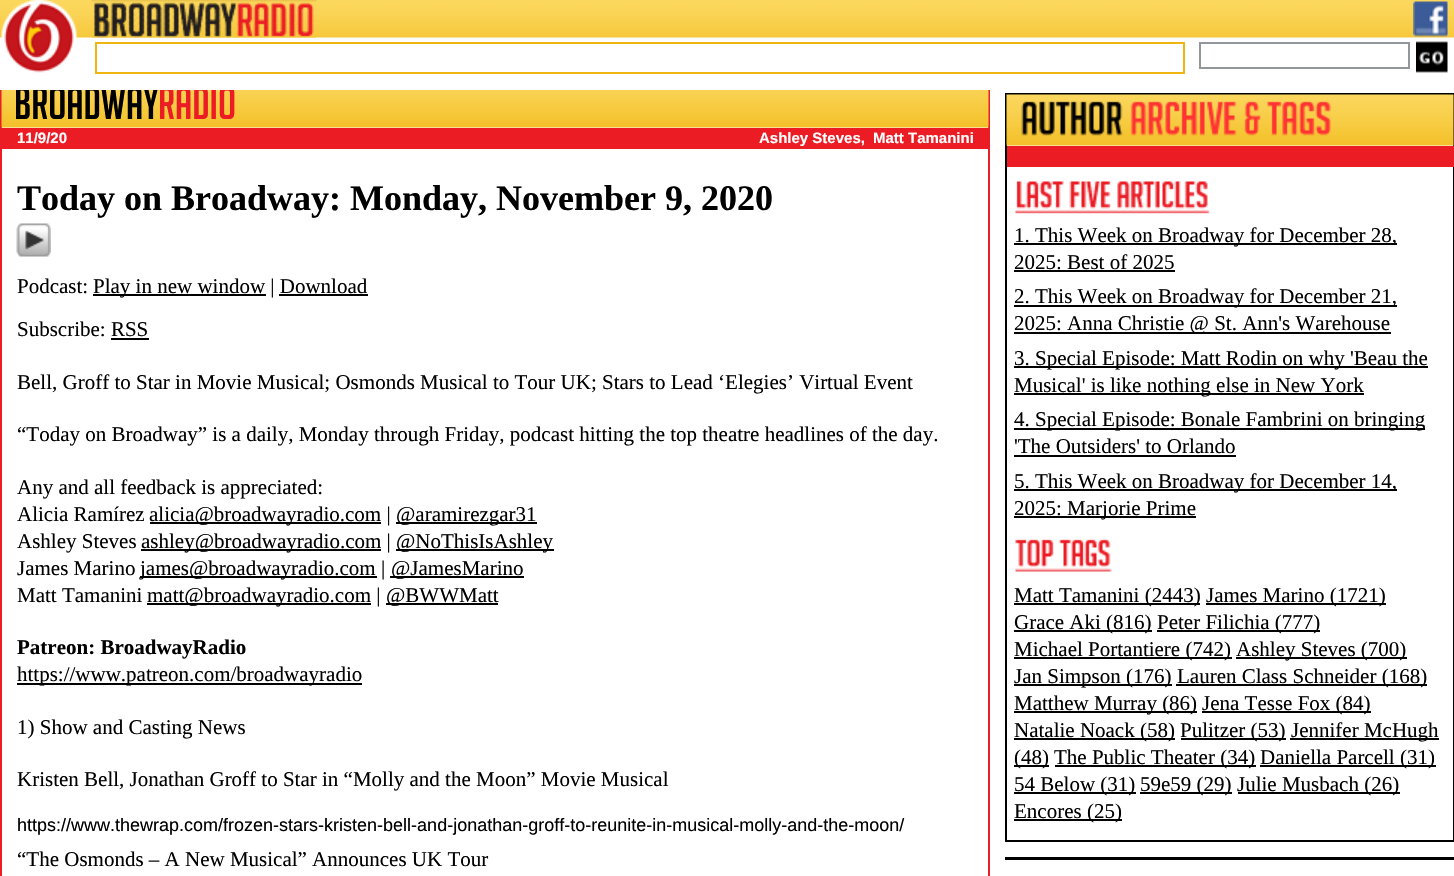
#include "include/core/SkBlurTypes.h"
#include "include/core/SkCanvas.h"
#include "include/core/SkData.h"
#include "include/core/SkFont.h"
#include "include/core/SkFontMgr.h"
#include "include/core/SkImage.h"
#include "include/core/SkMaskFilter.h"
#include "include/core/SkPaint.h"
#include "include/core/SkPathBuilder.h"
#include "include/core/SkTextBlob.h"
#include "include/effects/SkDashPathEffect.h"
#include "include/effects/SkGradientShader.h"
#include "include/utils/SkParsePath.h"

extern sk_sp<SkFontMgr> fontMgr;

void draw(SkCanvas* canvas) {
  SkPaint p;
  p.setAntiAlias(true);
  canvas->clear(SK_ColorWHITE);
  canvas->drawImageRect(SkImages::DeferredFromEncodedData(SkData::MakeFromFileName("images/1.png")), SkRect::MakeLTRB(0, 0, 1454, 38), SkSamplingOptions());
  canvas->drawImageRect(SkImages::DeferredFromEncodedData(SkData::MakeFromFileName("images/2.png")), SkRect::MakeLTRB(1, 0, 77, 73), SkSamplingOptions());
  canvas->drawImageRect(SkImages::DeferredFromEncodedData(SkData::MakeFromFileName("images/3.png")), SkRect::MakeLTRB(91, 0, 317, 38), SkSamplingOptions());
  canvas->drawImageRect(SkImages::DeferredFromEncodedData(SkData::MakeFromFileName("images/4.png")), SkRect::MakeLTRB(1413, 1, 1448, 37), SkSamplingOptions());
  p.setStyle(SkPaint::kStroke_Style);
  p.setStrokeWidth(2);
  p.setColor(SkColorSetRGB(240, 182, 16));
  canvas->drawRect(SkRect::MakeLTRB(96, 43, 1184, 73), p);
  p.setColor(SkColorSetRGB(146, 151, 155));
  canvas->drawRect(SkRect::MakeLTRB(1200, 43, 1409, 68), p);
  canvas->drawImageRect(SkImages::DeferredFromEncodedData(SkData::MakeFromFileName("images/5.png")), SkRect::MakeLTRB(1416, 41, 1448, 73), SkSamplingOptions());
  p.setColor(SkColorSetRGB(235, 28, 36));
  canvas->drawRect(SkRect::MakeLTRB(1, 76, 989, 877), p);
  canvas->drawImageRect(SkImages::DeferredFromEncodedData(SkData::MakeFromFileName("images/6.png")), SkRect::MakeLTRB(1, 90, 989, 128), SkSamplingOptions());
  p.setStyle(SkPaint::kFill_Style);
  canvas->drawRect(SkRect::MakeLTRB(2, 128, 988, 149), p);
  canvas->drawImageRect(SkImages::DeferredFromEncodedData(SkData::MakeFromFileName("images/7.png")), SkRect::MakeLTRB(16, 223, 51, 257), SkSamplingOptions());
  p.setColor(SK_ColorBLACK);
  canvas->drawRect(SkRect::MakeLTRB(93, 294, 266, 296), p);
  canvas->drawRect(SkRect::MakeLTRB(279, 294, 368, 296), p);
  canvas->drawRect(SkRect::MakeLTRB(111, 338, 149, 340), p);
  canvas->drawRect(SkRect::MakeLTRB(150, 522, 381, 524), p);
  canvas->drawRect(SkRect::MakeLTRB(396, 522, 537, 524), p);
  canvas->drawRect(SkRect::MakeLTRB(141, 549, 381, 551), p);
  canvas->drawRect(SkRect::MakeLTRB(396, 549, 554, 551), p);
  canvas->drawRect(SkRect::MakeLTRB(140, 576, 377, 578), p);
  canvas->drawRect(SkRect::MakeLTRB(390, 576, 524, 578), p);
  canvas->drawRect(SkRect::MakeLTRB(147, 603, 371, 605), p);
  canvas->drawRect(SkRect::MakeLTRB(386, 603, 498, 605), p);
  canvas->drawRect(SkRect::MakeLTRB(17, 683, 362, 685), p);
  p.setStyle(SkPaint::kStroke_Style);
  canvas->drawRect(SkRect::MakeLTRB(1006, 94, 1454, 841), p);
  canvas->drawImageRect(SkImages::DeferredFromEncodedData(SkData::MakeFromFileName("images/8.png")), SkRect::MakeLTRB(1006, 94, 1454, 146), SkSamplingOptions());
  canvas->drawImageRect(SkImages::DeferredFromEncodedData(SkData::MakeFromFileName("images/9.png")), SkRect::MakeLTRB(1021, 101, 1331, 136), SkSamplingOptions());
  p.setStyle(SkPaint::kFill_Style);
  p.setColor(SkColorSetRGB(235, 28, 36));
  canvas->drawRect(SkRect::MakeLTRB(1007, 146, 1454, 167), p);
  canvas->drawImageRect(SkImages::DeferredFromEncodedData(SkData::MakeFromFileName("images/10.png")), SkRect::MakeLTRB(1015, 181, 1210, 214), SkSamplingOptions());
  p.setColor(SK_ColorBLACK);
  canvas->drawRect(SkRect::MakeLTRB(1014, 243, 1397, 245), p);
  canvas->drawRect(SkRect::MakeLTRB(1014, 270, 1175, 272), p);
  canvas->drawRect(SkRect::MakeLTRB(1014, 305, 1397, 307), p);
  canvas->drawRect(SkRect::MakeLTRB(1014, 332, 1391, 334), p);
  canvas->drawRect(SkRect::MakeLTRB(1014, 366, 1428, 368), p);
  canvas->drawRect(SkRect::MakeLTRB(1014, 393, 1364, 395), p);
  canvas->drawRect(SkRect::MakeLTRB(1014, 428, 1425, 430), p);
  canvas->drawRect(SkRect::MakeLTRB(1014, 455, 1236, 457), p);
  canvas->drawRect(SkRect::MakeLTRB(1014, 489, 1397, 491), p);
  canvas->drawRect(SkRect::MakeLTRB(1014, 516, 1196, 518), p);
  canvas->drawImageRect(SkImages::DeferredFromEncodedData(SkData::MakeFromFileName("images/11.png")), SkRect::MakeLTRB(1015, 539, 1112, 572), SkSamplingOptions());
  canvas->drawRect(SkRect::MakeLTRB(1014, 603, 1200, 605), p);
  canvas->drawRect(SkRect::MakeLTRB(1206, 603, 1386, 605), p);
  canvas->drawRect(SkRect::MakeLTRB(1014, 630, 1152, 632), p);
  canvas->drawRect(SkRect::MakeLTRB(1157, 630, 1320, 632), p);
  canvas->drawRect(SkRect::MakeLTRB(1014, 657, 1232, 659), p);
  canvas->drawRect(SkRect::MakeLTRB(1236, 657, 1407, 659), p);
  canvas->drawRect(SkRect::MakeLTRB(1014, 684, 1172, 686), p);
  canvas->drawRect(SkRect::MakeLTRB(1176, 684, 1427, 686), p);
  canvas->drawRect(SkRect::MakeLTRB(1014, 711, 1197, 713), p);
  canvas->drawRect(SkRect::MakeLTRB(1202, 711, 1371, 713), p);
  canvas->drawRect(SkRect::MakeLTRB(1014, 738, 1175, 740), p);
  canvas->drawRect(SkRect::MakeLTRB(1181, 738, 1286, 740), p);
  canvas->drawRect(SkRect::MakeLTRB(1290, 738, 1439, 740), p);
  canvas->drawRect(SkRect::MakeLTRB(1014, 765, 1049, 767), p);
  canvas->drawRect(SkRect::MakeLTRB(1055, 765, 1256, 767), p);
  canvas->drawRect(SkRect::MakeLTRB(1260, 765, 1436, 767), p);
  canvas->drawRect(SkRect::MakeLTRB(1014, 792, 1136, 794), p);
  canvas->drawRect(SkRect::MakeLTRB(1140, 792, 1232, 794), p);
  canvas->drawRect(SkRect::MakeLTRB(1238, 792, 1400, 794), p);
  canvas->drawRect(SkRect::MakeLTRB(1014, 819, 1122, 821), p);
  canvas->drawRect(SkRect::MakeLTRB(1005, 857, 1454, 860), p);
  SkFont font1(fontMgr->matchFamilyStyle("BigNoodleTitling", SkFontStyle::Normal()), 45);
  font1.setSubpixel(true);
  canvas->drawString("BROADWAY", 14, 119, font1, p);
  p.setColor(SkColorSetRGB(235, 28, 36));
  canvas->drawString("RADIO", 158, 119, font1, p);
  p.setColor(SK_ColorWHITE);
  canvas->drawRect(SkRect::MakeLTRB(0, 75, 990, 90), p);
  SkFont font2(fontMgr->matchFamilyStyle("Liberation Sans", SkFontStyle::Bold()), 15);
  font2.setSubpixel(true);
  canvas->drawString("11/9/20", 17, 143, font2, p);
  canvas->drawString("Ashley Steves,", 759, 143, font2, p);
  canvas->drawString("Matt Tamanini", 873, 143, font2, p);
  SkFont font3(fontMgr->matchFamilyStyle("Liberation Serif", SkFontStyle::Bold()), 36);
  font3.setSubpixel(true);
  p.setColor(SK_ColorBLACK);
  canvas->drawString("Today on Broadway: Monday, November 9, 2020", 17, 210, font3, p);
  SkFont font4(fontMgr->matchFamilyStyle("Liberation Serif", SkFontStyle::Normal()), 21);
  font4.setSubpixel(true);
  canvas->drawString("Podcast:", 17, 293, font4, p);
  canvas->drawString("Play in new window | Download", 93, 293, font4, p);
  canvas->drawString("Subscribe: RSS", 17, 336, font4, p);
  canvas->drawString("Bell, Groff to Star in Movie Musical; Osmonds Musical to Tour UK; Stars to Lead ‘Elegies’ Virtual Event", 17, 389, font4, p);
  canvas->drawString("“Today on Broadway” is a daily, Monday through Friday, podcast hitting the top theatre headlines of the day.", 17, 441, font4, p);
  canvas->drawString("Any and all feedback is appreciated:", 17, 494, font4, p);
  canvas->drawString("Alicia Ramírez", 17, 521, font4, p);
  canvas->drawString("alicia@broadwayradio.com |", 149, 521, font4, p);
  canvas->drawString("@aramirezgar31", 396, 521, font4, p);
  canvas->drawString("Ashley Steves", 17, 548, font4, p);
  canvas->drawString("ashley@broadwayradio.com |", 141, 548, font4, p);
  canvas->drawString("@NoThisIsAshley", 396, 548, font4, p);
  canvas->drawString("James Marino", 17, 575, font4, p);
  canvas->drawString("james@broadwayradio.com |", 140, 575, font4, p);
  canvas->drawString("@JamesMarino", 391, 575, font4, p);
  canvas->drawString("Matt Tamanini", 17, 602, font4, p);
  canvas->drawString("matt@broadwayradio.com |", 147, 602, font4, p);
  canvas->drawString("@BWWMatt", 386, 602, font4, p);
  SkFont font5(fontMgr->matchFamilyStyle("Liberation Serif", SkFontStyle::Bold()), 21);
  font5.setSubpixel(true);
  canvas->drawString("Patreon: BroadwayRadio", 17, 654, font5, p);
  canvas->drawString("https://www.patreon.com/broadwayradio", 17, 681, font4, p);
  canvas->drawString("1) Show and Casting News", 17, 734, font4, p);
  canvas->drawString("Kristen Bell, Jonathan Groff to Star in “Molly and the Moon” Movie Musical", 17, 786, font4, p);
  SkFont font6(fontMgr->matchFamilyStyle("Liberation Sans", SkFontStyle::Normal()), 18);
  font6.setSubpixel(true);
  canvas->drawString("https://www.thewrap.com/frozen-stars-kristen-bell-and-jonathan-groff-to-reunite-in-musical-molly-and-the-moon/", 17, 831, font6, p);
  canvas->drawString("“The Osmonds – A New Musical” Announces UK Tour", 17, 866, font4, p);
  canvas->drawString("1. This Week on Broadway for December 28,", 1014, 242, font4, p);
  canvas->drawString("2025: Best of 2025", 1014, 269, font4, p);
  canvas->drawString("2. This Week on Broadway for December 21,", 1014, 303, font4, p);
  canvas->drawString("2025: Anna Christie @ St. Ann's Warehouse", 1014, 330, font4, p);
  canvas->drawString("3. Special Episode: Matt Rodin on why 'Beau the", 1014, 365, font4, p);
  canvas->drawString("Musical' is like nothing else in New York", 1014, 392, font4, p);
  canvas->drawString("4. Special Episode: Bonale Fambrini on bringing", 1014, 426, font4, p);
  canvas->drawString("'The Outsiders' to Orlando", 1014, 453, font4, p);
  canvas->drawString("5. This Week on Broadway for December 14,", 1014, 488, font4, p);
  canvas->drawString("2025: Marjorie Prime", 1014, 515, font4, p);
  canvas->drawString("Matt Tamanini (2443)", 1014, 602, font4, p);
  canvas->drawString("James Marino (1721)", 1206, 602, font4, p);
  canvas->drawString("Grace Aki (816)", 1014, 629, font4, p);
  canvas->drawString("Peter Filichia (777)", 1157, 629, font4, p);
  canvas->drawString("Michael Portantiere (742)", 1014, 656, font4, p);
  canvas->drawString("Ashley Steves (700)", 1236, 656, font4, p);
  canvas->drawString("Jan Simpson (176)", 1014, 683, font4, p);
  canvas->drawString("Lauren Class Schneider (168)", 1177, 683, font4, p);
  canvas->drawString("Matthew Murray (86)", 1014, 710, font4, p);
  canvas->drawString("Jena Tesse Fox (84)", 1202, 710, font4, p);
  canvas->drawString("Natalie Noack (58)", 1014, 737, font4, p);
  canvas->drawString("Pulitzer (53)", 1180, 737, font4, p);
  canvas->drawString("Jennifer McHugh", 1291, 737, font4, p);
  canvas->drawString("(48)", 1014, 764, font4, p);
  canvas->drawString("The Public Theater (34)", 1054, 764, font4, p);
  canvas->drawString("Daniella Parcell (31)", 1260, 764, font4, p);
  canvas->drawString("54 Below (31)", 1014, 791, font4, p);
  canvas->drawString("59e59 (29)", 1140, 791, font4, p);
  canvas->drawString("Julie Musbach (26)", 1237, 791, font4, p);
  canvas->drawString("Encores (25)", 1014, 818, font4, p);
}
